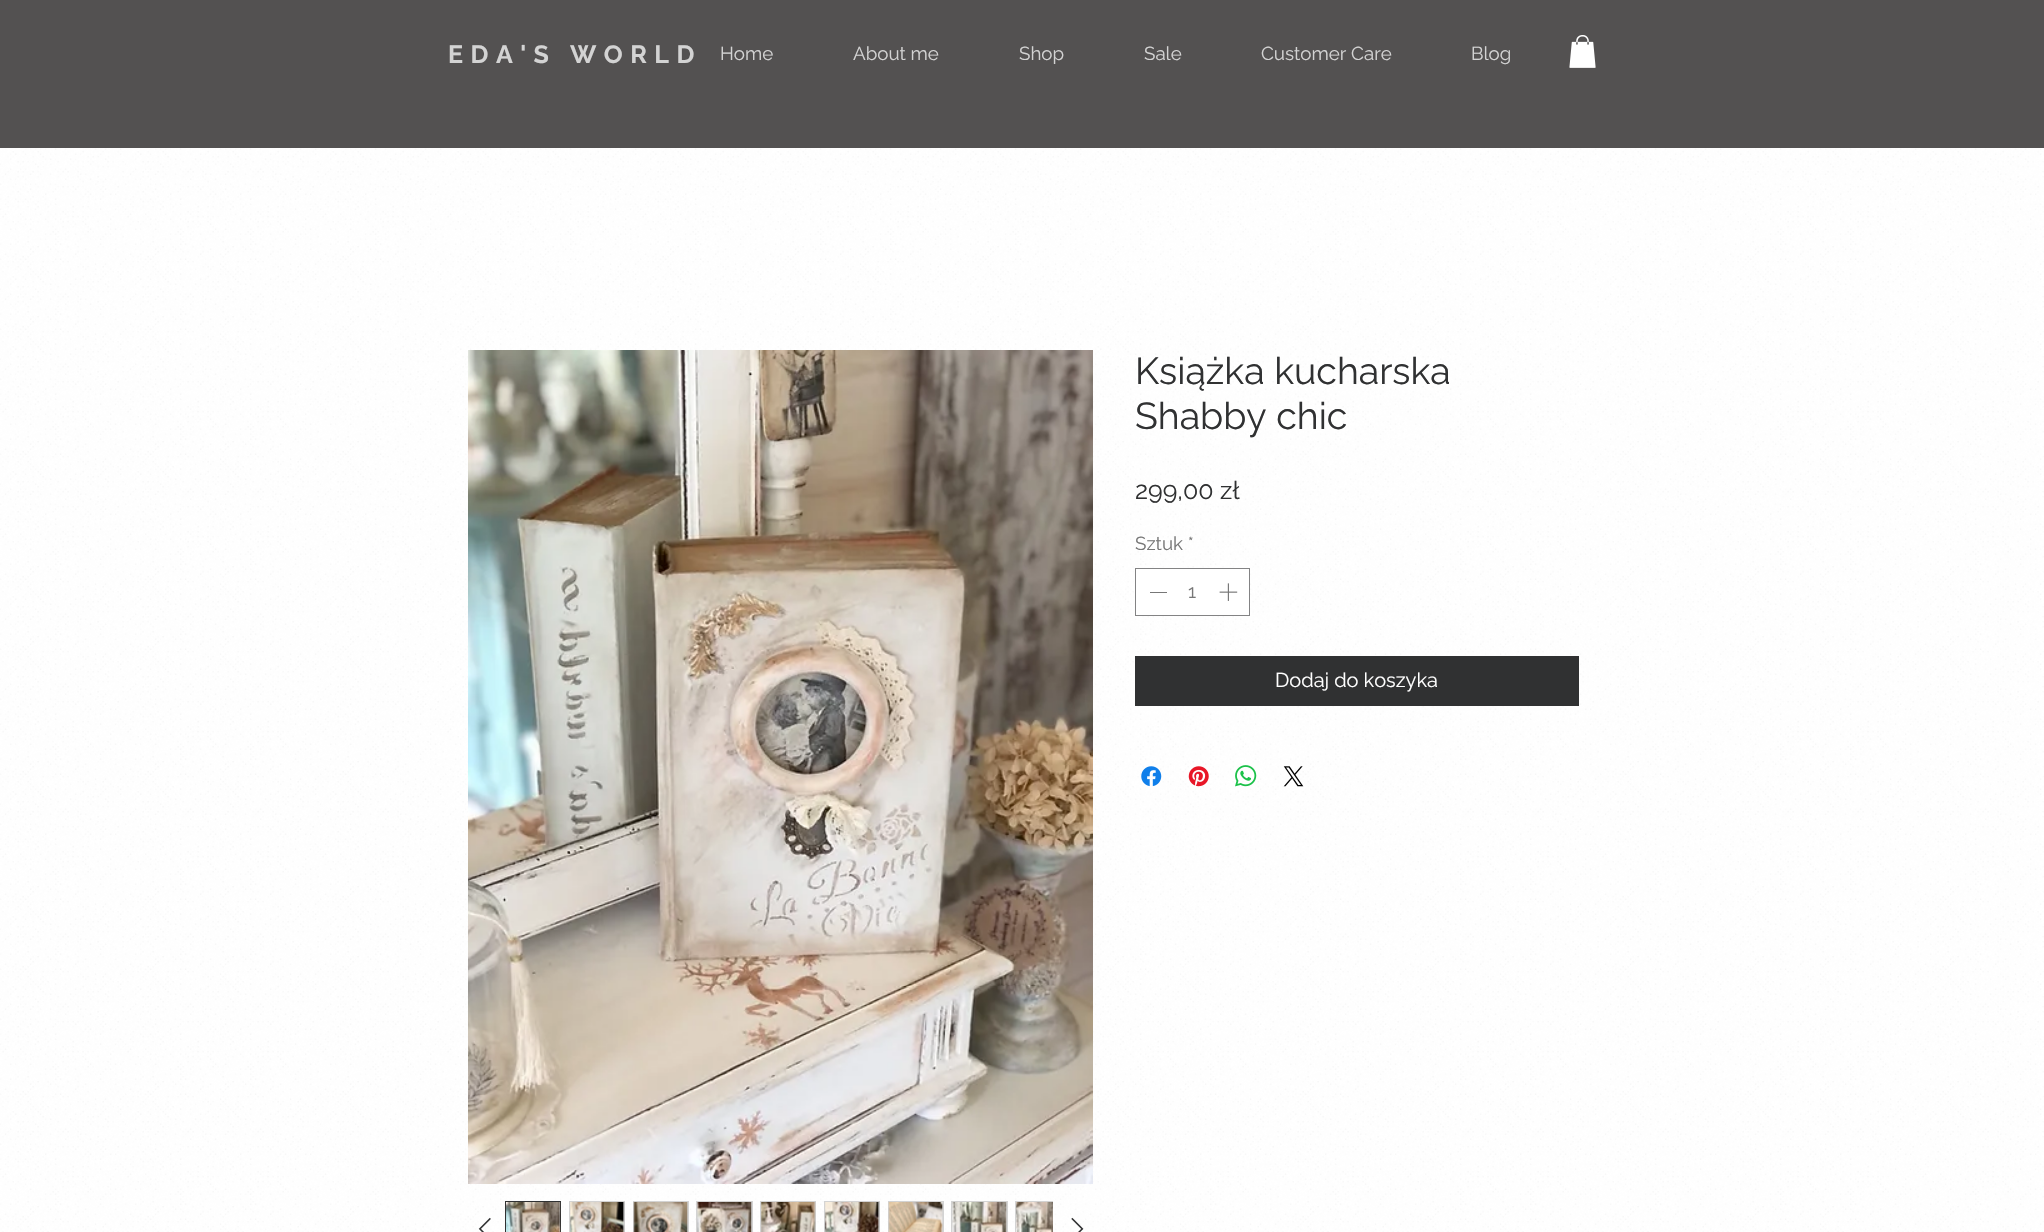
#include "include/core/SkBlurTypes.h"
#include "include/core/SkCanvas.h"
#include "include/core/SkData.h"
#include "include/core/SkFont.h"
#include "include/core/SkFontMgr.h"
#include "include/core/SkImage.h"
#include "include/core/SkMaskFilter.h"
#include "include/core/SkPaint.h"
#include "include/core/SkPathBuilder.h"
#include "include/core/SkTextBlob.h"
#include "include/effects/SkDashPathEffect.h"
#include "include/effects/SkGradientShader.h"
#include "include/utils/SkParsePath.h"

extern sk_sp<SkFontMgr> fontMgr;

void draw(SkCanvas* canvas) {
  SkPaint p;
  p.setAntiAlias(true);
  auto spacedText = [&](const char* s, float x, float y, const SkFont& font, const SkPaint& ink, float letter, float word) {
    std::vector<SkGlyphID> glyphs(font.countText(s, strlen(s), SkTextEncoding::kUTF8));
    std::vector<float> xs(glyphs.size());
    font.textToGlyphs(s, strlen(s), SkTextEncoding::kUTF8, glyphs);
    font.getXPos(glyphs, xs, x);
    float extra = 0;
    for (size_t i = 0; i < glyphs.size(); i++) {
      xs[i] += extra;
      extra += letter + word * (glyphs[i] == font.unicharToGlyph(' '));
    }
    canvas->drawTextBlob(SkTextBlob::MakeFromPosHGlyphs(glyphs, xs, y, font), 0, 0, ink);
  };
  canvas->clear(SK_ColorWHITE);
  p.setColor(SkColorSetRGB(83, 81, 81));
  canvas->drawRect(SkRect::MakeLTRB(0, 0, 2044, 148), p);
  canvas->drawImageRect(SkImages::DeferredFromEncodedData(SkData::MakeFromFileName("images/1.png")), SkRect::MakeLTRB(1569, 35, 1596, 68), SkSamplingOptions());
  canvas->drawImageRect(SkImages::DeferredFromEncodedData(SkData::MakeFromFileName("images/2.png")), SkRect::MakeLTRB(0, 148, 2044, 1232), SkSamplingOptions());
  canvas->drawImageRect(SkImages::DeferredFromEncodedData(SkData::MakeFromFileName("images/3.png")), SkRect::MakeLTRB(468, 350, 1093, 1184), SkSamplingOptions());
  canvas->drawImageRect(SkImages::DeferredFromEncodedData(SkData::MakeFromFileName("images/4.png")), SkRect::MakeLTRB(478, 1217, 491, 1232), SkSamplingOptions());
  p.setColor(SkColorSetRGB(211, 211, 211));
  canvas->drawRect(SkRect::MakeLTRB(559, 1202, 560, 1232), p);
  p.setStyle(SkPaint::kStroke_Style);
  p.setStrokeWidth(1);
  p.setColor(SkColorSetRGB(48, 49, 50));
  canvas->drawRect(SkRect::MakeLTRB(505.5f, 1201.5f, 560.5f, 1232.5f), p);
  canvas->drawImageRect(SkImages::DeferredFromEncodedData(SkData::MakeFromFileName("images/5.png")), SkRect::MakeLTRB(506, 1202, 561, 1232), SkSamplingOptions());
  p.setStyle(SkPaint::kFill_Style);
  p.setColor(SkColorSetRGB(211, 211, 211));
  canvas->drawRect(SkRect::MakeLTRB(569, 1201, 625, 1232), p);
  canvas->drawImageRect(SkImages::DeferredFromEncodedData(SkData::MakeFromFileName("images/6.png")), SkRect::MakeLTRB(570, 1202, 625, 1232), SkSamplingOptions());
  canvas->drawRect(SkRect::MakeLTRB(633, 1201, 689, 1232), p);
  canvas->drawImageRect(SkImages::DeferredFromEncodedData(SkData::MakeFromFileName("images/7.png")), SkRect::MakeLTRB(633, 1202, 688, 1232), SkSamplingOptions());
  canvas->drawRect(SkRect::MakeLTRB(696, 1201, 753, 1232), p);
  canvas->drawImageRect(SkImages::DeferredFromEncodedData(SkData::MakeFromFileName("images/8.png")), SkRect::MakeLTRB(697, 1202, 752, 1232), SkSamplingOptions());
  canvas->drawRect(SkRect::MakeLTRB(760, 1201, 816, 1232), p);
  canvas->drawImageRect(SkImages::DeferredFromEncodedData(SkData::MakeFromFileName("images/9.png")), SkRect::MakeLTRB(761, 1202, 816, 1232), SkSamplingOptions());
  canvas->drawRect(SkRect::MakeLTRB(824, 1201, 880, 1232), p);
  canvas->drawImageRect(SkImages::DeferredFromEncodedData(SkData::MakeFromFileName("images/10.png")), SkRect::MakeLTRB(824, 1202, 880, 1232), SkSamplingOptions());
  canvas->drawRect(SkRect::MakeLTRB(888, 1201, 944, 1232), p);
  canvas->drawImageRect(SkImages::DeferredFromEncodedData(SkData::MakeFromFileName("images/11.png")), SkRect::MakeLTRB(888, 1202, 943, 1232), SkSamplingOptions());
  canvas->drawRect(SkRect::MakeLTRB(951, 1201, 1008, 1232), p);
  canvas->drawImageRect(SkImages::DeferredFromEncodedData(SkData::MakeFromFileName("images/12.png")), SkRect::MakeLTRB(952, 1202, 1007, 1232), SkSamplingOptions());
  canvas->drawRect(SkRect::MakeLTRB(1015, 1201, 1053, 1232), p);
  canvas->drawImageRect(SkImages::DeferredFromEncodedData(SkData::MakeFromFileName("images/13.png")), SkRect::MakeLTRB(1016, 1202, 1053, 1232), SkSamplingOptions());
  canvas->drawImageRect(SkImages::DeferredFromEncodedData(SkData::MakeFromFileName("images/14.png")), SkRect::MakeLTRB(1071, 1217, 1084, 1232), SkSamplingOptions());
  p.setColor(SK_ColorWHITE);
  canvas->drawRect(SkRect::MakeLTRB(1135.5f, 568.5f, 1249.5f, 615.5f), p);
  p.setStyle(SkPaint::kStroke_Style);
  p.setColor(SkColorSetRGB(131, 131, 132));
  canvas->drawRect(SkRect::MakeLTRB(1135.5f, 568.5f, 1249.5f, 615.5f), p);
  p.setStyle(SkPaint::kFill_Style);
  p.setColor(SkColorSetRGB(119, 119, 119));
  canvas->drawRect(SkRect::MakeLTRB(1150, 592, 1167, 593), p);
  canvas->drawImageRect(SkImages::DeferredFromEncodedData(SkData::MakeFromFileName("images/15.png")), SkRect::MakeLTRB(1219, 583, 1238, 601), SkSamplingOptions());
  p.setColor(SkColorSetRGB(48, 49, 50));
  canvas->drawRect(SkRect::MakeLTRB(1135, 656, 1579, 706), p);
  canvas->drawImageRect(SkImages::DeferredFromEncodedData(SkData::MakeFromFileName("images/16.png")), SkRect::MakeLTRB(1141, 766, 1162, 787), SkSamplingOptions());
  canvas->drawImageRect(SkImages::DeferredFromEncodedData(SkData::MakeFromFileName("images/17.png")), SkRect::MakeLTRB(1188, 766, 1209, 787), SkSamplingOptions());
  canvas->drawImageRect(SkImages::DeferredFromEncodedData(SkData::MakeFromFileName("images/18.png")), SkRect::MakeLTRB(1235, 765, 1257, 787), SkSamplingOptions());
  canvas->drawImageRect(SkImages::DeferredFromEncodedData(SkData::MakeFromFileName("images/19.png")), SkRect::MakeLTRB(1283, 766, 1304, 787), SkSamplingOptions());
  SkFont font1(fontMgr->matchFamilyStyle("Raleway", SkFontStyle::Bold()), 25);
  font1.setSubpixel(true);
  p.setColor(SkColorSetRGB(211, 211, 211));
  spacedText("EDA'S WORLD", 448, 63, font1, p, 7.5f, 0);
  SkFont font2(fontMgr->matchFamilyStyle("Raleway", SkFontStyle::Normal()), 18.75f);
  font2.setSubpixel(true);
  canvas->drawString("Home", 720, 60, font2, p);
  canvas->drawString("About me", 853, 60, font2, p);
  canvas->drawString("Shop", 1019, 60, font2, p);
  canvas->drawString("Sale", 1144, 60, font2, p);
  canvas->drawString("Customer Care", 1261, 60, font2, p);
  canvas->drawString("Blog", 1471, 60, font2, p);
  SkFont font3(fontMgr->matchFamilyStyle("Raleway", SkFontStyle::Normal()), 37.5f);
  font3.setSubpixel(true);
  p.setColor(SkColorSetRGB(48, 49, 50));
  canvas->drawString("Książka kucharska", 1135, 384, font3, p);
  canvas->drawString("Shabby chic", 1135, 429, font3, p);
  SkFont font4(fontMgr->matchFamilyStyle("Raleway", SkFontStyle::Normal()), 25);
  font4.setSubpixel(true);
  canvas->drawString("299,00 zł", 1135, 499, font4, p);
  p.setColor(SkColorSetRGB(119, 119, 119));
  canvas->drawString("Sztuk *", 1135, 550, font2, p);
  canvas->drawString("1", 1188, 598, font2, p);
  SkFont font5(fontMgr->matchFamilyStyle("Raleway", SkFontStyle::Normal()), 20);
  font5.setSubpixel(true);
  p.setColor(SK_ColorWHITE);
  canvas->drawString("Dodaj do koszyka", 1275, 687, font5, p);
}
